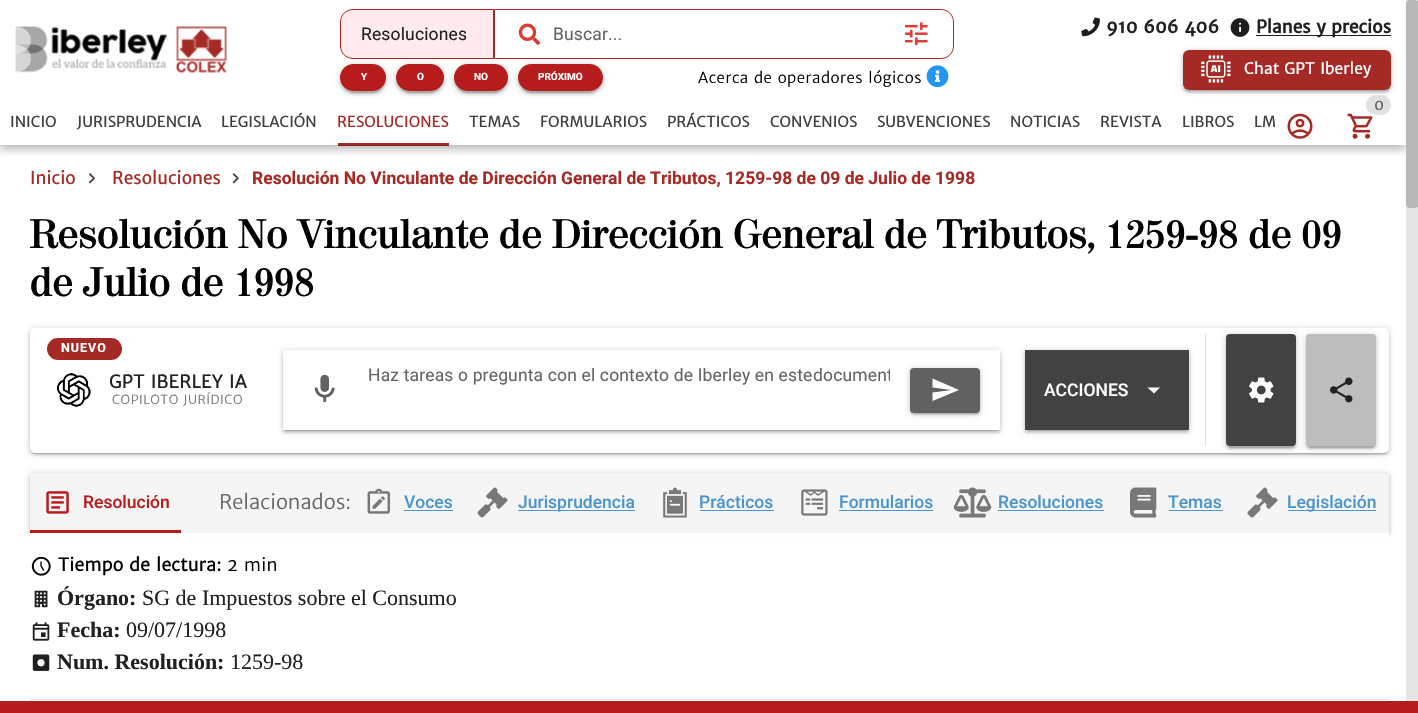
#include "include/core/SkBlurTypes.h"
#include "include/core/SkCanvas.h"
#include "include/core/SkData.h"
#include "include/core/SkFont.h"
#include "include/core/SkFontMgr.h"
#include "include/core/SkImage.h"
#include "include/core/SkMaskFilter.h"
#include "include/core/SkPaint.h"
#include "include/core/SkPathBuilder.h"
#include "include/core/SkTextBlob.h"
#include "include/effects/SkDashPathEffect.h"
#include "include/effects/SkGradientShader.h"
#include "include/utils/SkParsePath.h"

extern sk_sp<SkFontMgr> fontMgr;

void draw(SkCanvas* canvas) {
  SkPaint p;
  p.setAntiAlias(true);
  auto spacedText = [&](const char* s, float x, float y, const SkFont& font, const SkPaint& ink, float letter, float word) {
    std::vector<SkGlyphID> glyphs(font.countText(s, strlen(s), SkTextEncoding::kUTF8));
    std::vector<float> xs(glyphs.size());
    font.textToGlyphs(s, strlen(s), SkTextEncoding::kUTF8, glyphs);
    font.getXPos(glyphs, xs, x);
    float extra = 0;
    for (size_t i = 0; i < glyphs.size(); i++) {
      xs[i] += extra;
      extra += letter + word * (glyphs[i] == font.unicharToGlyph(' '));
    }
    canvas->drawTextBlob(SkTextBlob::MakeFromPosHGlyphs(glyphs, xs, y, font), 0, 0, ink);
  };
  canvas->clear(SK_ColorWHITE);
  p.setColor(SkColorSetRGB(230, 230, 230));
  canvas->drawRect(SkRect::MakeLTRB(1406, 0, 1418, 701), p);
  canvas->drawImageRect(SkImages::DeferredFromEncodedData(SkData::MakeFromFileName("images/1.png")), SkRect::MakeLTRB(15, 26, 227, 73), SkSamplingOptions());
  p.setColor(SkColorSetRGB(255, 235, 238));
  canvas->drawPath(SkPathBuilder().moveTo(353, 9.5f).lineTo(493.5f, 9.5f).lineTo(493.5f, 58.5f).lineTo(353, 58.5f).cubicTo(346, 58.5f, 340.5f, 53, 340.5f, 46).lineTo(340.5f, 22).cubicTo(340.5f, 15, 346, 9.5f, 353, 9.5f).close().detach(), p);
  p.setStyle(SkPaint::kStroke_Style);
  p.setStrokeWidth(1);
  p.setColor(SkColorSetRGB(165, 41, 37));
  canvas->drawPath(SkPathBuilder().moveTo(353, 9.5f).lineTo(493.5f, 9.5f).lineTo(493.5f, 58.5f).lineTo(353, 58.5f).cubicTo(346, 58.5f, 340.5f, 53, 340.5f, 46).lineTo(340.5f, 22).cubicTo(340.5f, 15, 346, 9.5f, 353, 9.5f).close().detach(), p);
  canvas->drawPath(SkPathBuilder().moveTo(494.5f, 9.5f).lineTo(941, 9.5f).cubicTo(948, 9.5f, 953.5f, 15, 953.5f, 22).lineTo(953.5f, 46).cubicTo(953.5f, 53, 948, 58.5f, 941, 58.5f).lineTo(494.5f, 58.5f).close().detach(), p);
  canvas->drawImageRect(SkImages::DeferredFromEncodedData(SkData::MakeFromFileName("images/2.png")), SkRect::MakeLTRB(518, 23, 541, 45), SkSamplingOptions());
  canvas->drawImageRect(SkImages::DeferredFromEncodedData(SkData::MakeFromFileName("images/3.png")), SkRect::MakeLTRB(905, 22, 928, 45), SkSamplingOptions());
  p.setStyle(SkPaint::kFill_Style);
  p.setColor(SkColorSetRGB(183, 28, 28));
  canvas->drawRoundRect(SkRect::MakeLTRB(340, 64, 386, 91), 13.5f, 13.5f, p);
  canvas->drawRoundRect(SkRect::MakeLTRB(396, 64, 444, 91), 13.5f, 13.5f, p);
  canvas->drawRoundRect(SkRect::MakeLTRB(454, 64, 508, 91), 13.5f, 13.5f, p);
  canvas->drawRoundRect(SkRect::MakeLTRB(518, 64, 603, 91), 13.5f, 13.5f, p);
  canvas->drawImageRect(SkImages::DeferredFromEncodedData(SkData::MakeFromFileName("images/4.png")), SkRect::MakeLTRB(926, 65, 949, 88), SkSamplingOptions());
  canvas->drawImageRect(SkImages::DeferredFromEncodedData(SkData::MakeFromFileName("images/5.png")), SkRect::MakeLTRB(1081, 17, 1100, 37), SkSamplingOptions());
  canvas->drawImageRect(SkImages::DeferredFromEncodedData(SkData::MakeFromFileName("images/6.png")), SkRect::MakeLTRB(1230, 18, 1250, 37), SkSamplingOptions());
  p.setColor(SkColorSetRGB(29, 29, 29));
  canvas->drawRect(SkRect::MakeLTRB(1256, 35, 1391, 36), p);
  p.setColor(SkColorSetRGB(165, 41, 37));
  canvas->drawRoundRect(SkRect::MakeLTRB(1183, 50, 1391, 90), 6, 6, p);
  canvas->save();
  canvas->clipPath(SkPathBuilder(SkPathFillType::kEvenOdd).moveTo(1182, 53).lineTo(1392, 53).lineTo(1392, 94).lineTo(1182, 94).close().moveTo(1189, 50).lineTo(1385, 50).cubicTo(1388.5f, 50, 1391, 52.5f, 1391, 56).lineTo(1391, 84).cubicTo(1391, 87.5f, 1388.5f, 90, 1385, 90).lineTo(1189, 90).cubicTo(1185.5f, 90, 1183, 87.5f, 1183, 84).lineTo(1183, 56).cubicTo(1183, 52.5f, 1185.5f, 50, 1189, 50).close().detach(), true);
  p.setColor(SkColorSetARGB(31, 0, 0, 0));
  p.setMaskFilter(SkMaskFilter::MakeBlur(kNormal_SkBlurStyle, 0.5f));
  canvas->drawRoundRect(SkRect::MakeLTRB(1185, 56, 1389, 91), 4, 4, p);
  p.setMaskFilter(nullptr);
  canvas->restore();
  canvas->save();
  canvas->clipPath(SkPathBuilder(SkPathFillType::kEvenOdd).moveTo(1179, 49).lineTo(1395, 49).lineTo(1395, 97).lineTo(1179, 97).close().moveTo(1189, 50).lineTo(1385, 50).cubicTo(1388.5f, 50, 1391, 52.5f, 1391, 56).lineTo(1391, 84).cubicTo(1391, 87.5f, 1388.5f, 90, 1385, 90).lineTo(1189, 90).cubicTo(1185.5f, 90, 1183, 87.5f, 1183, 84).lineTo(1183, 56).cubicTo(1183, 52.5f, 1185.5f, 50, 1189, 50).close().detach(), true);
  p.setColor(SkColorSetARGB(36, 0, 0, 0));
  p.setMaskFilter(SkMaskFilter::MakeBlur(kNormal_SkBlurStyle, 1));
  canvas->drawRoundRect(SkRect::MakeLTRB(1183, 53, 1391, 93), 6, 6, p);
  p.setMaskFilter(nullptr);
  canvas->restore();
  canvas->save();
  canvas->clipPath(SkPathBuilder(SkPathFillType::kEvenOdd).moveTo(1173, 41).lineTo(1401, 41).lineTo(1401, 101).lineTo(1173, 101).close().moveTo(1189, 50).lineTo(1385, 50).cubicTo(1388.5f, 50, 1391, 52.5f, 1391, 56).lineTo(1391, 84).cubicTo(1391, 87.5f, 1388.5f, 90, 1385, 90).lineTo(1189, 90).cubicTo(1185.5f, 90, 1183, 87.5f, 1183, 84).lineTo(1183, 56).cubicTo(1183, 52.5f, 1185.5f, 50, 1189, 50).close().detach(), true);
  p.setColor(SkColorSetARGB(51, 0, 0, 0));
  p.setMaskFilter(SkMaskFilter::MakeBlur(kNormal_SkBlurStyle, 3));
  canvas->drawRoundRect(SkRect::MakeLTRB(1183, 51, 1391, 91), 6, 6, p);
  p.setMaskFilter(nullptr);
  canvas->restore();
  canvas->drawImageRect(SkImages::DeferredFromEncodedData(SkData::MakeFromFileName("images/7.png")), SkRect::MakeLTRB(1201, 55, 1231, 83), SkSamplingOptions());
  canvas->drawImageRect(SkImages::DeferredFromEncodedData(SkData::MakeFromFileName("images/8.png")), SkRect::MakeLTRB(1347, 113, 1373, 139), SkSamplingOptions());
  p.setColor(SkColorSetRGB(224, 224, 224));
  canvas->drawRoundRect(SkRect::MakeLTRB(1366, 95, 1391, 115), 10, 10, p);
  canvas->drawImageRect(SkImages::DeferredFromEncodedData(SkData::MakeFromFileName("images/9.png")), SkRect::MakeLTRB(1287, 113, 1313, 139), SkSamplingOptions());
  p.setColor(SkColorSetRGB(165, 41, 37));
  canvas->drawRect(SkRect::MakeLTRB(338, 143, 449, 146), p);
  p.setColor(SkColorSetRGB(184, 184, 184));
  canvas->drawRoundRect(SkRect::MakeLTRB(1406, 0, 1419, 208), 4, 4, p);
  canvas->save();
  canvas->clipRect(SkRect::MakeLTRB(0, 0, 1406, 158));
  canvas->clipRect(SkRect::MakeLTRB(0, 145, 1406, 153));
  p.setColor(SkColorSetARGB(61, 0, 0, 0));
  p.setMaskFilter(SkMaskFilter::MakeBlur(kNormal_SkBlurStyle, 6));
  canvas->drawRect(SkRect::MakeLTRB(0, 0, 1406, 145), p);
  p.setMaskFilter(nullptr);
  canvas->restore();
  canvas->save();
  canvas->clipRect(SkRect::MakeLTRB(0, 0, 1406, 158));
  canvas->clipRect(SkRect::MakeLTRB(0, 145, 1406, 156));
  p.setColor(SkColorSetARGB(51, 0, 0, 0));
  p.setMaskFilter(SkMaskFilter::MakeBlur(kNormal_SkBlurStyle, 6));
  canvas->drawRect(SkRect::MakeLTRB(-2, -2, 1409, 148), p);
  p.setMaskFilter(nullptr);
  canvas->restore();
  canvas->save();
  canvas->clipPath(SkPathBuilder(SkPathFillType::kEvenOdd).moveTo(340, 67).lineTo(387, 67).lineTo(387, 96).lineTo(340, 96).close().moveTo(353.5f, 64).lineTo(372.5f, 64).cubicTo(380, 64, 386, 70, 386, 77.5f).cubicTo(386, 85, 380, 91, 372.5f, 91).lineTo(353.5f, 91).cubicTo(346, 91, 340, 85, 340, 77.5f).cubicTo(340, 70, 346, 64, 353.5f, 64).close().detach(), true);
  p.setColor(SkColorSetARGB(31, 0, 0, 0));
  p.setMaskFilter(SkMaskFilter::MakeBlur(kNormal_SkBlurStyle, 0.5f));
  canvas->drawRoundRect(SkRect::MakeLTRB(343, 70, 384, 93), 11.5f, 11.5f, p);
  p.setMaskFilter(nullptr);
  canvas->restore();
  canvas->save();
  canvas->clipPath(SkPathBuilder(SkPathFillType::kEvenOdd).moveTo(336, 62).lineTo(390, 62).lineTo(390, 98).lineTo(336, 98).close().moveTo(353.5f, 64).lineTo(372.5f, 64).cubicTo(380, 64, 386, 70, 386, 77.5f).cubicTo(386, 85, 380, 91, 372.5f, 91).lineTo(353.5f, 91).cubicTo(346, 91, 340, 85, 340, 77.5f).cubicTo(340, 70, 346, 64, 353.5f, 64).close().detach(), true);
  p.setColor(SkColorSetARGB(36, 0, 0, 0));
  p.setMaskFilter(SkMaskFilter::MakeBlur(kNormal_SkBlurStyle, 1));
  canvas->drawRoundRect(SkRect::MakeLTRB(340, 66, 386, 94), 14, 14, p);
  p.setMaskFilter(nullptr);
  canvas->restore();
  canvas->save();
  canvas->clipPath(SkPathBuilder(SkPathFillType::kEvenOdd).moveTo(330, 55).lineTo(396, 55).lineTo(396, 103).lineTo(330, 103).close().moveTo(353.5f, 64).lineTo(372.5f, 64).cubicTo(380, 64, 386, 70, 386, 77.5f).cubicTo(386, 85, 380, 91, 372.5f, 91).lineTo(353.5f, 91).cubicTo(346, 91, 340, 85, 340, 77.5f).cubicTo(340, 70, 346, 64, 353.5f, 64).close().detach(), true);
  p.setColor(SkColorSetARGB(51, 0, 0, 0));
  p.setMaskFilter(SkMaskFilter::MakeBlur(kNormal_SkBlurStyle, 3));
  canvas->drawRoundRect(SkRect::MakeLTRB(340, 65, 386, 93), 14, 14, p);
  p.setMaskFilter(nullptr);
  canvas->restore();
  canvas->save();
  canvas->clipPath(SkPathBuilder(SkPathFillType::kEvenOdd).moveTo(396, 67).lineTo(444, 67).lineTo(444, 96).lineTo(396, 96).close().moveTo(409.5f, 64).lineTo(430.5f, 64).cubicTo(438, 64, 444, 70, 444, 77.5f).cubicTo(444, 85, 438, 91, 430.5f, 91).lineTo(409.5f, 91).cubicTo(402, 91, 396, 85, 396, 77.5f).cubicTo(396, 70, 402, 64, 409.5f, 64).close().detach(), true);
  p.setColor(SkColorSetARGB(31, 0, 0, 0));
  p.setMaskFilter(SkMaskFilter::MakeBlur(kNormal_SkBlurStyle, 0.5f));
  canvas->drawRoundRect(SkRect::MakeLTRB(399, 70, 441, 93), 11.5f, 11.5f, p);
  p.setMaskFilter(nullptr);
  canvas->restore();
  canvas->save();
  canvas->clipPath(SkPathBuilder(SkPathFillType::kEvenOdd).moveTo(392, 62).lineTo(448, 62).lineTo(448, 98).lineTo(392, 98).close().moveTo(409.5f, 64).lineTo(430.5f, 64).cubicTo(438, 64, 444, 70, 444, 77.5f).cubicTo(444, 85, 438, 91, 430.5f, 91).lineTo(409.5f, 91).cubicTo(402, 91, 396, 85, 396, 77.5f).cubicTo(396, 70, 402, 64, 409.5f, 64).close().detach(), true);
  p.setColor(SkColorSetARGB(36, 0, 0, 0));
  p.setMaskFilter(SkMaskFilter::MakeBlur(kNormal_SkBlurStyle, 1));
  canvas->drawRoundRect(SkRect::MakeLTRB(396, 66, 444, 94), 14, 14, p);
  p.setMaskFilter(nullptr);
  canvas->restore();
  canvas->save();
  canvas->clipPath(SkPathBuilder(SkPathFillType::kEvenOdd).moveTo(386, 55).lineTo(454, 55).lineTo(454, 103).lineTo(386, 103).close().moveTo(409.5f, 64).lineTo(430.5f, 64).cubicTo(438, 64, 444, 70, 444, 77.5f).cubicTo(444, 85, 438, 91, 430.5f, 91).lineTo(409.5f, 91).cubicTo(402, 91, 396, 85, 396, 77.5f).cubicTo(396, 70, 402, 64, 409.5f, 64).close().detach(), true);
  p.setColor(SkColorSetARGB(51, 0, 0, 0));
  p.setMaskFilter(SkMaskFilter::MakeBlur(kNormal_SkBlurStyle, 3));
  canvas->drawRoundRect(SkRect::MakeLTRB(396, 65, 444, 93), 14, 14, p);
  p.setMaskFilter(nullptr);
  canvas->restore();
  canvas->save();
  canvas->clipPath(SkPathBuilder(SkPathFillType::kEvenOdd).moveTo(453, 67).lineTo(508, 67).lineTo(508, 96).lineTo(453, 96).close().moveTo(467.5f, 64).lineTo(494.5f, 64).cubicTo(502, 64, 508, 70, 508, 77.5f).cubicTo(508, 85, 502, 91, 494.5f, 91).lineTo(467.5f, 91).cubicTo(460, 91, 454, 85, 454, 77.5f).cubicTo(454, 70, 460, 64, 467.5f, 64).close().detach(), true);
  p.setColor(SkColorSetARGB(31, 0, 0, 0));
  p.setMaskFilter(SkMaskFilter::MakeBlur(kNormal_SkBlurStyle, 0.5f));
  canvas->drawRoundRect(SkRect::MakeLTRB(456, 70, 505, 93), 11.5f, 11.5f, p);
  p.setMaskFilter(nullptr);
  canvas->restore();
  canvas->save();
  canvas->clipPath(SkPathBuilder(SkPathFillType::kEvenOdd).moveTo(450, 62).lineTo(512, 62).lineTo(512, 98).lineTo(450, 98).close().moveTo(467.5f, 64).lineTo(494.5f, 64).cubicTo(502, 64, 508, 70, 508, 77.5f).cubicTo(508, 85, 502, 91, 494.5f, 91).lineTo(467.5f, 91).cubicTo(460, 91, 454, 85, 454, 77.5f).cubicTo(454, 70, 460, 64, 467.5f, 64).close().detach(), true);
  p.setColor(SkColorSetARGB(36, 0, 0, 0));
  p.setMaskFilter(SkMaskFilter::MakeBlur(kNormal_SkBlurStyle, 1));
  canvas->drawRoundRect(SkRect::MakeLTRB(454, 66, 508, 94), 14, 14, p);
  p.setMaskFilter(nullptr);
  canvas->restore();
  canvas->save();
  canvas->clipPath(SkPathBuilder(SkPathFillType::kEvenOdd).moveTo(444, 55).lineTo(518, 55).lineTo(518, 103).lineTo(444, 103).close().moveTo(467.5f, 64).lineTo(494.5f, 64).cubicTo(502, 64, 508, 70, 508, 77.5f).cubicTo(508, 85, 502, 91, 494.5f, 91).lineTo(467.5f, 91).cubicTo(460, 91, 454, 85, 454, 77.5f).cubicTo(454, 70, 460, 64, 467.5f, 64).close().detach(), true);
  p.setColor(SkColorSetARGB(51, 0, 0, 0));
  p.setMaskFilter(SkMaskFilter::MakeBlur(kNormal_SkBlurStyle, 3));
  canvas->drawRoundRect(SkRect::MakeLTRB(454, 65, 508, 93), 14, 14, p);
  p.setMaskFilter(nullptr);
  canvas->restore();
  canvas->save();
  canvas->clipPath(SkPathBuilder(SkPathFillType::kEvenOdd).moveTo(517, 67).lineTo(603, 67).lineTo(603, 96).lineTo(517, 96).close().moveTo(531.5f, 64).lineTo(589.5f, 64).cubicTo(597, 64, 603, 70, 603, 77.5f).cubicTo(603, 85, 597, 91, 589.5f, 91).lineTo(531.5f, 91).cubicTo(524, 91, 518, 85, 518, 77.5f).cubicTo(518, 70, 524, 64, 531.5f, 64).close().detach(), true);
  p.setColor(SkColorSetARGB(31, 0, 0, 0));
  p.setMaskFilter(SkMaskFilter::MakeBlur(kNormal_SkBlurStyle, 0.5f));
  canvas->drawRoundRect(SkRect::MakeLTRB(520, 70, 600, 93), 11.5f, 11.5f, p);
  p.setMaskFilter(nullptr);
  canvas->restore();
  canvas->save();
  canvas->clipPath(SkPathBuilder(SkPathFillType::kEvenOdd).moveTo(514, 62).lineTo(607, 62).lineTo(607, 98).lineTo(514, 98).close().moveTo(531.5f, 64).lineTo(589.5f, 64).cubicTo(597, 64, 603, 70, 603, 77.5f).cubicTo(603, 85, 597, 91, 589.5f, 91).lineTo(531.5f, 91).cubicTo(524, 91, 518, 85, 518, 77.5f).cubicTo(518, 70, 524, 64, 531.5f, 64).close().detach(), true);
  p.setColor(SkColorSetARGB(36, 0, 0, 0));
  p.setMaskFilter(SkMaskFilter::MakeBlur(kNormal_SkBlurStyle, 1));
  canvas->drawRoundRect(SkRect::MakeLTRB(518, 66, 603, 94), 14, 14, p);
  p.setMaskFilter(nullptr);
  canvas->restore();
  canvas->save();
  canvas->clipPath(SkPathBuilder(SkPathFillType::kEvenOdd).moveTo(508, 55).lineTo(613, 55).lineTo(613, 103).lineTo(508, 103).close().moveTo(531.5f, 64).lineTo(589.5f, 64).cubicTo(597, 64, 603, 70, 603, 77.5f).cubicTo(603, 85, 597, 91, 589.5f, 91).lineTo(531.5f, 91).cubicTo(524, 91, 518, 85, 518, 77.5f).cubicTo(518, 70, 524, 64, 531.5f, 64).close().detach(), true);
  p.setColor(SkColorSetARGB(51, 0, 0, 0));
  p.setMaskFilter(SkMaskFilter::MakeBlur(kNormal_SkBlurStyle, 3));
  canvas->drawRoundRect(SkRect::MakeLTRB(518, 65, 603, 93), 14, 14, p);
  p.setMaskFilter(nullptr);
  canvas->restore();
  canvas->drawImageRect(SkImages::DeferredFromEncodedData(SkData::MakeFromFileName("images/10.png")), SkRect::MakeLTRB(88, 173, 96, 184), SkSamplingOptions());
  canvas->drawImageRect(SkImages::DeferredFromEncodedData(SkData::MakeFromFileName("images/11.png")), SkRect::MakeLTRB(232, 173, 239, 184), SkSamplingOptions());
  p.setColor(SkColorSetARGB(31, 0, 0, 0));
  p.setMaskFilter(SkMaskFilter::MakeBlur(kNormal_SkBlurStyle, 0.5f));
  canvas->drawRoundRect(SkRect::MakeLTRB(33, 334, 1386, 454), 2.5f, 2.5f, p);
  p.setMaskFilter(nullptr);
  p.setColor(SkColorSetARGB(36, 0, 0, 0));
  p.setMaskFilter(SkMaskFilter::MakeBlur(kNormal_SkBlurStyle, 1));
  canvas->drawRoundRect(SkRect::MakeLTRB(30, 330, 1389, 455), 5, 5, p);
  p.setMaskFilter(nullptr);
  p.setColor(SkColorSetARGB(51, 0, 0, 0));
  p.setMaskFilter(SkMaskFilter::MakeBlur(kNormal_SkBlurStyle, 3));
  canvas->drawRoundRect(SkRect::MakeLTRB(30, 329, 1389, 454), 5, 5, p);
  p.setMaskFilter(nullptr);
  p.setColor(SK_ColorWHITE);
  canvas->drawRoundRect(SkRect::MakeLTRB(30, 328, 1389, 453), 5, 5, p);
  p.setColor(SkColorSetRGB(165, 41, 37));
  canvas->drawRoundRect(SkRect::MakeLTRB(45, 336, 124, 362), 13, 13, p);
  p.setStyle(SkPaint::kStroke_Style);
  p.setStrokeWidth(4);
  p.setColor(SK_ColorWHITE);
  canvas->drawRoundRect(SkRect::MakeLTRB(45, 336, 124, 362), 13, 13, p);
  canvas->drawImageRect(SkImages::DeferredFromEncodedData(SkData::MakeFromFileName("images/12.png")), SkRect::MakeLTRB(56, 373, 91, 407), SkSamplingOptions());
  canvas->save();
  canvas->clipRect(SkRect::MakeLTRB(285, 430, 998, 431));
  p.setStyle(SkPaint::kFill_Style);
  p.setColor(SkColorSetARGB(31, 0, 0, 0));
  p.setMaskFilter(SkMaskFilter::MakeBlur(kNormal_SkBlurStyle, 0.5f));
  canvas->drawRect(SkRect::MakeLTRB(285, 356, 998, 431), p);
  p.setMaskFilter(nullptr);
  canvas->restore();
  canvas->save();
  canvas->clipPath(SkPathBuilder(SkPathFillType::kEvenOdd).moveTo(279, 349).lineTo(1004, 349).lineTo(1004, 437).lineTo(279, 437).close().moveTo(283, 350).lineTo(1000, 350).lineTo(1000, 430).lineTo(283, 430).close().detach(), true);
  p.setColor(SkColorSetARGB(36, 0, 0, 0));
  p.setMaskFilter(SkMaskFilter::MakeBlur(kNormal_SkBlurStyle, 1));
  canvas->drawRect(SkRect::MakeLTRB(283, 353, 1000, 433), p);
  p.setMaskFilter(nullptr);
  canvas->restore();
  canvas->save();
  canvas->clipPath(SkPathBuilder(SkPathFillType::kEvenOdd).moveTo(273, 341).lineTo(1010, 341).lineTo(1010, 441).lineTo(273, 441).close().moveTo(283, 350).lineTo(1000, 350).lineTo(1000, 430).lineTo(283, 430).close().detach(), true);
  p.setColor(SkColorSetARGB(51, 0, 0, 0));
  p.setMaskFilter(SkMaskFilter::MakeBlur(kNormal_SkBlurStyle, 3));
  canvas->drawRect(SkRect::MakeLTRB(283, 351, 1000, 431), p);
  p.setMaskFilter(nullptr);
  canvas->restore();
  canvas->drawImageRect(SkImages::DeferredFromEncodedData(SkData::MakeFromFileName("images/13.png")), SkRect::MakeLTRB(314, 374, 335, 402), SkSamplingOptions());
  p.setColor(SkColorSetRGB(97, 97, 97));
  canvas->drawRoundRect(SkRect::MakeLTRB(910, 368, 980, 413), 4, 4, p);
  canvas->save();
  canvas->clipPath(SkPathBuilder(SkPathFillType::kEvenOdd).moveTo(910, 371).lineTo(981, 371).lineTo(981, 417).lineTo(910, 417).close().moveTo(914, 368).lineTo(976, 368).cubicTo(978, 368, 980, 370, 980, 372).lineTo(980, 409).cubicTo(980, 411, 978, 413, 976, 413).lineTo(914, 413).cubicTo(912, 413, 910, 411, 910, 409).lineTo(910, 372).cubicTo(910, 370, 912, 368, 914, 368).close().detach(), true);
  p.setColor(SkColorSetARGB(31, 0, 0, 0));
  p.setMaskFilter(SkMaskFilter::MakeBlur(kNormal_SkBlurStyle, 0.5f));
  canvas->drawRoundRect(SkRect::MakeLTRB(913, 374, 978, 414), 1, 1, p);
  p.setMaskFilter(nullptr);
  canvas->restore();
  canvas->save();
  canvas->clipPath(SkPathBuilder(SkPathFillType::kEvenOdd).moveTo(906, 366).lineTo(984, 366).lineTo(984, 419).lineTo(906, 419).close().moveTo(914, 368).lineTo(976, 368).cubicTo(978, 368, 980, 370, 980, 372).lineTo(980, 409).cubicTo(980, 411, 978, 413, 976, 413).lineTo(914, 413).cubicTo(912, 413, 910, 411, 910, 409).lineTo(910, 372).cubicTo(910, 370, 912, 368, 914, 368).close().detach(), true);
  p.setColor(SkColorSetARGB(36, 0, 0, 0));
  p.setMaskFilter(SkMaskFilter::MakeBlur(kNormal_SkBlurStyle, 1));
  canvas->drawRoundRect(SkRect::MakeLTRB(910, 370, 980, 415), 4, 4, p);
  p.setMaskFilter(nullptr);
  canvas->restore();
  canvas->save();
  canvas->clipPath(SkPathBuilder(SkPathFillType::kEvenOdd).moveTo(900, 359).lineTo(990, 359).lineTo(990, 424).lineTo(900, 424).close().moveTo(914, 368).lineTo(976, 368).cubicTo(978, 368, 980, 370, 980, 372).lineTo(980, 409).cubicTo(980, 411, 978, 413, 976, 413).lineTo(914, 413).cubicTo(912, 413, 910, 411, 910, 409).lineTo(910, 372).cubicTo(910, 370, 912, 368, 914, 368).close().detach(), true);
  p.setColor(SkColorSetARGB(51, 0, 0, 0));
  p.setMaskFilter(SkMaskFilter::MakeBlur(kNormal_SkBlurStyle, 3));
  canvas->drawRoundRect(SkRect::MakeLTRB(910, 369, 980, 414), 4, 4, p);
  p.setMaskFilter(nullptr);
  canvas->restore();
  p.setColor(SK_ColorWHITE);
  canvas->drawPath(SkPathBuilder().moveTo(932.5f, 401).lineTo(959, 390).lineTo(932.5f, 378.5f).lineTo(932.5f, 387.5f).lineTo(951.5f, 390).lineTo(932.5f, 392.5f).close().detach(), p);
  p.setColor(SkColorSetRGB(66, 66, 66));
  canvas->drawRect(SkRect::MakeLTRB(1025, 350, 1189, 430), p);
  canvas->save();
  canvas->clipRect(SkRect::MakeLTRB(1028, 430, 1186, 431));
  p.setColor(SkColorSetARGB(31, 0, 0, 0));
  p.setMaskFilter(SkMaskFilter::MakeBlur(kNormal_SkBlurStyle, 0.5f));
  canvas->drawRect(SkRect::MakeLTRB(1028, 356, 1186, 431), p);
  p.setMaskFilter(nullptr);
  canvas->restore();
  canvas->save();
  canvas->clipPath(SkPathBuilder(SkPathFillType::kEvenOdd).moveTo(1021, 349).lineTo(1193, 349).lineTo(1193, 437).lineTo(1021, 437).close().moveTo(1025, 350).lineTo(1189, 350).lineTo(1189, 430).lineTo(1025, 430).close().detach(), true);
  p.setColor(SkColorSetARGB(36, 0, 0, 0));
  p.setMaskFilter(SkMaskFilter::MakeBlur(kNormal_SkBlurStyle, 1));
  canvas->drawRect(SkRect::MakeLTRB(1025, 353, 1189, 433), p);
  p.setMaskFilter(nullptr);
  canvas->restore();
  canvas->save();
  canvas->clipPath(SkPathBuilder(SkPathFillType::kEvenOdd).moveTo(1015, 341).lineTo(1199, 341).lineTo(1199, 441).lineTo(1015, 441).close().moveTo(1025, 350).lineTo(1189, 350).lineTo(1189, 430).lineTo(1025, 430).close().detach(), true);
  p.setColor(SkColorSetARGB(51, 0, 0, 0));
  p.setMaskFilter(SkMaskFilter::MakeBlur(kNormal_SkBlurStyle, 3));
  canvas->drawRect(SkRect::MakeLTRB(1025, 351, 1189, 431), p);
  p.setMaskFilter(nullptr);
  canvas->restore();
  p.setColor(SK_ColorWHITE);
  canvas->drawPath(SkPathBuilder().moveTo(1147.5f, 387.5f).lineTo(1160, 387.5f).lineTo(1154, 393.5f).close().detach(), p);
  p.setColor(SkColorSetRGB(224, 224, 224));
  canvas->drawRect(SkRect::MakeLTRB(1205, 334, 1206, 446), p);
  p.setColor(SkColorSetRGB(66, 66, 66));
  canvas->drawRoundRect(SkRect::MakeLTRB(1226, 334, 1296, 446), 4, 4, p);
  canvas->save();
  canvas->clipRect(SkRect::MakeLTRB(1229, 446, 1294, 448));
  p.setColor(SkColorSetARGB(31, 0, 0, 0));
  p.setMaskFilter(SkMaskFilter::MakeBlur(kNormal_SkBlurStyle, 0.5f));
  canvas->drawRoundRect(SkRect::MakeLTRB(1229, 340, 1294, 448), 1, 1, p);
  p.setMaskFilter(nullptr);
  canvas->restore();
  canvas->save();
  canvas->clipPath(SkPathBuilder(SkPathFillType::kEvenOdd).moveTo(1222, 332).lineTo(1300, 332).lineTo(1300, 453).lineTo(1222, 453).close().moveTo(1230, 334).lineTo(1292, 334).cubicTo(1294, 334, 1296, 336, 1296, 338).lineTo(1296, 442).cubicTo(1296, 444, 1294, 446, 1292, 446).lineTo(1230, 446).cubicTo(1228, 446, 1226, 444, 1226, 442).lineTo(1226, 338).cubicTo(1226, 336, 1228, 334, 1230, 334).close().detach(), true);
  p.setColor(SkColorSetARGB(36, 0, 0, 0));
  p.setMaskFilter(SkMaskFilter::MakeBlur(kNormal_SkBlurStyle, 1));
  canvas->drawRoundRect(SkRect::MakeLTRB(1226, 336, 1296, 449), 4, 4, p);
  p.setMaskFilter(nullptr);
  canvas->restore();
  canvas->save();
  canvas->clipPath(SkPathBuilder(SkPathFillType::kEvenOdd).moveTo(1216, 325).lineTo(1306, 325).lineTo(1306, 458).lineTo(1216, 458).close().moveTo(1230, 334).lineTo(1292, 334).cubicTo(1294, 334, 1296, 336, 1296, 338).lineTo(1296, 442).cubicTo(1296, 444, 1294, 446, 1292, 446).lineTo(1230, 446).cubicTo(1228, 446, 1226, 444, 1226, 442).lineTo(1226, 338).cubicTo(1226, 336, 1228, 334, 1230, 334).close().detach(), true);
  p.setColor(SkColorSetARGB(51, 0, 0, 0));
  p.setMaskFilter(SkMaskFilter::MakeBlur(kNormal_SkBlurStyle, 3));
  canvas->drawRoundRect(SkRect::MakeLTRB(1226, 335, 1296, 448), 4, 4, p);
  p.setMaskFilter(nullptr);
  canvas->restore();
  canvas->drawImageRect(SkImages::DeferredFromEncodedData(SkData::MakeFromFileName("images/14.png")), SkRect::MakeLTRB(1249, 377, 1274, 403), SkSamplingOptions());
  p.setColor(SkColorSetRGB(189, 189, 189));
  canvas->drawRoundRect(SkRect::MakeLTRB(1306, 334, 1376, 446), 4, 4, p);
  canvas->save();
  canvas->clipRect(SkRect::MakeLTRB(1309, 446, 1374, 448));
  p.setColor(SkColorSetARGB(31, 0, 0, 0));
  p.setMaskFilter(SkMaskFilter::MakeBlur(kNormal_SkBlurStyle, 0.5f));
  canvas->drawRoundRect(SkRect::MakeLTRB(1309, 340, 1374, 448), 1, 1, p);
  p.setMaskFilter(nullptr);
  canvas->restore();
  canvas->save();
  canvas->clipPath(SkPathBuilder(SkPathFillType::kEvenOdd).moveTo(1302, 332).lineTo(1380, 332).lineTo(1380, 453).lineTo(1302, 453).close().moveTo(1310, 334).lineTo(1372, 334).cubicTo(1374, 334, 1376, 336, 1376, 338).lineTo(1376, 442).cubicTo(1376, 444, 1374, 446, 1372, 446).lineTo(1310, 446).cubicTo(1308, 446, 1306, 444, 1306, 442).lineTo(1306, 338).cubicTo(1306, 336, 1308, 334, 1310, 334).close().detach(), true);
  p.setColor(SkColorSetARGB(36, 0, 0, 0));
  p.setMaskFilter(SkMaskFilter::MakeBlur(kNormal_SkBlurStyle, 1));
  canvas->drawRoundRect(SkRect::MakeLTRB(1306, 336, 1376, 449), 4, 4, p);
  p.setMaskFilter(nullptr);
  canvas->restore();
  canvas->save();
  canvas->clipPath(SkPathBuilder(SkPathFillType::kEvenOdd).moveTo(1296, 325).lineTo(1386, 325).lineTo(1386, 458).lineTo(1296, 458).close().moveTo(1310, 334).lineTo(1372, 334).cubicTo(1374, 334, 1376, 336, 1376, 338).lineTo(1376, 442).cubicTo(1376, 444, 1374, 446, 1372, 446).lineTo(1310, 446).cubicTo(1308, 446, 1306, 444, 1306, 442).lineTo(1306, 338).cubicTo(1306, 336, 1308, 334, 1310, 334).close().detach(), true);
  p.setColor(SkColorSetARGB(51, 0, 0, 0));
  p.setMaskFilter(SkMaskFilter::MakeBlur(kNormal_SkBlurStyle, 3));
  canvas->drawRoundRect(SkRect::MakeLTRB(1306, 335, 1376, 448), 4, 4, p);
  p.setMaskFilter(nullptr);
  canvas->restore();
  canvas->drawImageRect(SkImages::DeferredFromEncodedData(SkData::MakeFromFileName("images/15.png")), SkRect::MakeLTRB(1330, 377, 1353, 403), SkSamplingOptions());
  p.setColor(SkColorSetARGB(36, 0, 0, 0));
  p.setMaskFilter(SkMaskFilter::MakeBlur(kNormal_SkBlurStyle, 1));
  canvas->drawRect(SkRect::MakeLTRB(30, 475, 1389, 535), p);
  p.setMaskFilter(nullptr);
  p.setColor(SkColorSetARGB(51, 0, 0, 0));
  p.setMaskFilter(SkMaskFilter::MakeBlur(kNormal_SkBlurStyle, 3));
  canvas->drawRect(SkRect::MakeLTRB(30, 474, 1389, 534), p);
  p.setMaskFilter(nullptr);
  p.setColor(SkColorSetRGB(245, 245, 245));
  canvas->drawRect(SkRect::MakeLTRB(30, 473, 1389, 533), p);
  canvas->drawImageRect(SkImages::DeferredFromEncodedData(SkData::MakeFromFileName("images/16.png")), SkRect::MakeLTRB(46, 491, 69, 514), SkSamplingOptions());
  p.setColor(SkColorSetRGB(183, 28, 28));
  canvas->drawRect(SkRect::MakeLTRB(30, 530, 181, 533), p);
  canvas->drawImageRect(SkImages::DeferredFromEncodedData(SkData::MakeFromFileName("images/17.png")), SkRect::MakeLTRB(367, 488, 391, 514), SkSamplingOptions());
  p.setColor(SkColorSetRGB(75, 149, 207));
  canvas->drawRect(SkRect::MakeLTRB(404, 510, 453, 511), p);
  canvas->drawImageRect(SkImages::DeferredFromEncodedData(SkData::MakeFromFileName("images/18.png")), SkRect::MakeLTRB(477, 487, 508, 518), SkSamplingOptions());
  canvas->drawRect(SkRect::MakeLTRB(518, 510, 635, 511), p);
  canvas->drawImageRect(SkImages::DeferredFromEncodedData(SkData::MakeFromFileName("images/19.png")), SkRect::MakeLTRB(663, 487, 687, 518), SkSamplingOptions());
  canvas->drawRect(SkRect::MakeLTRB(700, 510, 774, 511), p);
  canvas->drawImageRect(SkImages::DeferredFromEncodedData(SkData::MakeFromFileName("images/20.png")), SkRect::MakeLTRB(801, 489, 828, 516), SkSamplingOptions());
  canvas->drawRect(SkRect::MakeLTRB(839, 510, 933, 511), p);
  canvas->drawImageRect(SkImages::DeferredFromEncodedData(SkData::MakeFromFileName("images/21.png")), SkRect::MakeLTRB(953, 487, 992, 518), SkSamplingOptions());
  canvas->drawRect(SkRect::MakeLTRB(998, 510, 1104, 511), p);
  canvas->drawImageRect(SkImages::DeferredFromEncodedData(SkData::MakeFromFileName("images/22.png")), SkRect::MakeLTRB(1130, 487, 1157, 518), SkSamplingOptions());
  canvas->drawRect(SkRect::MakeLTRB(1169, 510, 1223, 511), p);
  canvas->drawImageRect(SkImages::DeferredFromEncodedData(SkData::MakeFromFileName("images/18.png")), SkRect::MakeLTRB(1247, 487, 1278, 518), SkSamplingOptions());
  canvas->drawRect(SkRect::MakeLTRB(1288, 510, 1376, 511), p);
  p.setColor(SK_ColorWHITE);
  canvas->drawRect(SkRect::MakeLTRB(30, 533, 1389, 539), p);
  canvas->drawImageRect(SkImages::DeferredFromEncodedData(SkData::MakeFromFileName("images/23.png")), SkRect::MakeLTRB(31, 556, 51, 576), SkSamplingOptions());
  canvas->drawImageRect(SkImages::DeferredFromEncodedData(SkData::MakeFromFileName("images/24.png")), SkRect::MakeLTRB(34, 590, 48, 608), SkSamplingOptions());
  canvas->drawImageRect(SkImages::DeferredFromEncodedData(SkData::MakeFromFileName("images/25.png")), SkRect::MakeLTRB(32, 622, 50, 641), SkSamplingOptions());
  canvas->drawImageRect(SkImages::DeferredFromEncodedData(SkData::MakeFromFileName("images/26.png")), SkRect::MakeLTRB(32, 654, 50, 671), SkSamplingOptions());
  p.setColor(SkColorSetRGB(224, 224, 224));
  canvas->drawRect(SkRect::MakeLTRB(30, 699, 1389, 700), p);
  p.setColor(SkColorSetRGB(183, 28, 28));
  canvas->drawRect(SkRect::MakeLTRB(0, 701, 1418, 713), p);
  SkFont font1(fontMgr->matchFamilyStyle("Roboto", SkFontStyle::Normal()), 17.5f);
  font1.setSubpixel(true);
  p.setColor(SkColorSetRGB(33, 33, 33));
  spacedText("Resoluciones", 361, 40, font1, p, 0.15f, 0);
  p.setColor(SkColorSetRGB(100, 100, 100));
  spacedText("Buscar...", 553, 40, font1, p, 0.15f, 0);
  SkFont font2(fontMgr->matchFamilyStyle("Roboto", SkFontStyle::Bold()), 10);
  font2.setSubpixel(true);
  p.setColor(SK_ColorWHITE);
  canvas->drawString("Y", 361, 80, font2, p);
  canvas->drawString("O", 417, 80, font2, p);
  canvas->drawString("NO", 474, 80, font2, p);
  canvas->drawString("PRÓXIMO", 538, 80, font2, p);
  SkFont font3(fontMgr->matchFamilyStyle("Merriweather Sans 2", SkFontStyle::Normal()), 15);
  font3.setSubpixel(true);
  p.setColor(SK_ColorBLACK);
  spacedText("Acerca de operadores lógicos", 698, 83, font3, p, 0.5f, 0);
  SkFont font4(fontMgr->matchFamilyStyle("Merriweather Sans 2", SkFontStyle::Bold()), 17.5f);
  font4.setSubpixel(true);
  p.setColor(SkColorSetRGB(33, 33, 33));
  canvas->drawString("910 606 406", 1106, 33, font4, p);
  canvas->drawString("Planes y precios", 1256, 33, font4, p);
  SkFont font5(fontMgr->matchFamilyStyle("Merriweather Sans", SkFontStyle::Normal()), 15.75f);
  font5.setSubpixel(true);
  p.setColor(SK_ColorWHITE);
  canvas->drawString("Chat GPT Iberley", 1244, 74, font5, p);
  SkFont font6(fontMgr->matchFamilyStyle("Merriweather Sans", SkFontStyle::Normal()), 15);
  font6.setSubpixel(true);
  p.setColor(SkColorSetRGB(100, 100, 100));
  canvas->drawString("0", 1374, 110, font6, p);
  p.setColor(SkColorSetRGB(63, 63, 63));
  canvas->drawString("INICIO", 10, 127, font6, p);
  canvas->drawString("JURISPRUDENCIA", 77, 127, font6, p);
  canvas->drawString("LEGISLACIÓN", 221, 127, font6, p);
  p.setColor(SkColorSetRGB(165, 41, 37));
  canvas->drawString("RESOLUCIONES", 337, 127, font6, p);
  p.setColor(SkColorSetRGB(63, 63, 63));
  canvas->drawString("TEMAS", 469, 127, font6, p);
  canvas->drawString("FORMULARIOS", 540, 127, font6, p);
  canvas->drawString("PRÁCTICOS", 667, 127, font6, p);
  canvas->drawString("CONVENIOS", 770, 127, font6, p);
  canvas->drawString("SUBVENCIONES", 877, 127, font6, p);
  canvas->drawString("NOTICIAS", 1010, 127, font6, p);
  canvas->drawString("REVISTA", 1100, 127, font6, p);
  canvas->drawString("LIBROS", 1182, 127, font6, p);
  canvas->drawString("LM", 1254, 127, font6, p);
  SkFont font7(fontMgr->matchFamilyStyle("Merriweather Sans", SkFontStyle::Normal()), 17.5f);
  font7.setSubpixel(true);
  p.setColor(SkColorSetRGB(165, 41, 37));
  canvas->drawString("Inicio", 30, 184, font7, p);
  canvas->drawString("Resoluciones", 112, 184, font7, p);
  SkFont font8(fontMgr->matchFamilyStyle("Roboto", SkFontStyle::Bold()), 17.5f);
  font8.setSubpixel(true);
  canvas->drawString("Resolución No Vinculante de Dirección General de Tributos, 1259-98 de 09 de Julio de 1998", 252, 184, font8, p);
  SkFont font9(fontMgr->matchFamilyStyle("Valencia", SkFontStyle::Bold()), 40);
  font9.setSubpixel(true);
  p.setColor(SK_ColorBLACK);
  canvas->drawString("Resolución No Vinculante de Dirección General de Tributos, 1259-98 de 09", 30, 248, font9, p);
  canvas->drawString("de Julio de 1998", 30, 296, font9, p);
  SkFont font10(fontMgr->matchFamilyStyle("Roboto", SkFontStyle::Bold()), 12.5f);
  font10.setSubpixel(true);
  p.setColor(SK_ColorWHITE);
  spacedText("NUEVO", 61, 352, font10, p, 1, 0);
  SkFont font11(fontMgr->matchFamilyStyle("Merriweather Sans", SkFontStyle::Bold()), 17.5f);
  font11.setSubpixel(true);
  p.setColor(SkColorSetRGB(33, 33, 33));
  spacedText("GPT IBERLEY IA", 109, 388, font11, p, 0.5f, 0);
  SkFont font12(fontMgr->matchFamilyStyle("Merriweather Sans 2", SkFontStyle::Normal()), 12.5f);
  font12.setSubpixel(true);
  p.setColor(SkColorSetRGB(117, 117, 117));
  spacedText("COPILOTO JURÍDICO", 112, 404, font12, p, 0.5f, 0);
  p.setColor(SkColorSetRGB(100, 100, 100));
  spacedText("Haz tareas o pregunta con el contexto de Iberley en este", 368, 381, font1, p, 0.15f, 0);
  canvas->save();
  canvas->clipRect(SkRect::MakeLTRB(368, 353, 890, 428));
  spacedText("document", 813, 381, font1, p, 0.15f, 0);
  canvas->restore();
  SkFont font13(fontMgr->matchFamilyStyle("Roboto", SkFontStyle(500, SkFontStyle::kNormal_Width, SkFontStyle::kUpright_Slant)), 17.5f);
  font13.setSubpixel(true);
  p.setColor(SK_ColorWHITE);
  canvas->drawString("ACCIONES", 1044, 396, font13, p);
  p.setColor(SkColorSetRGB(183, 28, 28));
  canvas->drawString("Resolución", 83, 508, font13, p);
  SkFont font14(fontMgr->matchFamilyStyle("Merriweather Sans 2", SkFontStyle::Normal()), 20);
  font14.setSubpixel(true);
  p.setColor(SkColorSetRGB(100, 100, 100));
  canvas->drawString("Relacionados:", 219, 509, font14, p);
  p.setColor(SkColorSetRGB(75, 149, 207));
  canvas->drawString("Voces", 404, 508, font13, p);
  canvas->drawString("Jurisprudencia", 518, 508, font13, p);
  canvas->drawString("Prácticos", 699, 508, font13, p);
  canvas->drawString("Formularios", 839, 508, font13, p);
  canvas->drawString("Resoluciones", 998, 508, font13, p);
  canvas->drawString("Temas", 1168, 508, font13, p);
  canvas->drawString("Legislación", 1287, 508, font13, p);
  p.setColor(SK_ColorBLACK);
  spacedText("Tiempo de lectura:", 58, 571, font11, p, 0.3f, 0);
  SkFont font15(fontMgr->matchFamilyStyle("Merriweather Sans 2", SkFontStyle::Normal()), 17.5f);
  font15.setSubpixel(true);
  spacedText("2 min", 227, 571, font15, p, 0.3f, 0);
  SkFont font16(fontMgr->matchFamilyStyle("Liberation Serif", SkFontStyle::Bold()), 22);
  font16.setSubpixel(true);
  p.setColor(SkColorSetRGB(33, 33, 33));
  canvas->drawString("Órgano:", 57, 605, font16, p);
  SkFont font17(fontMgr->matchFamilyStyle("Liberation Serif", SkFontStyle::Normal()), 22);
  font17.setSubpixel(true);
  canvas->drawString("SG de Impuestos sobre el Consumo", 142, 605, font17, p);
  canvas->drawString("Fecha:", 57, 637, font16, p);
  canvas->drawString("09/07/1998", 126, 637, font17, p);
  canvas->drawString("Num. Resolución:", 57, 669, font16, p);
  canvas->drawString("1259-98", 230, 669, font17, p);
}
